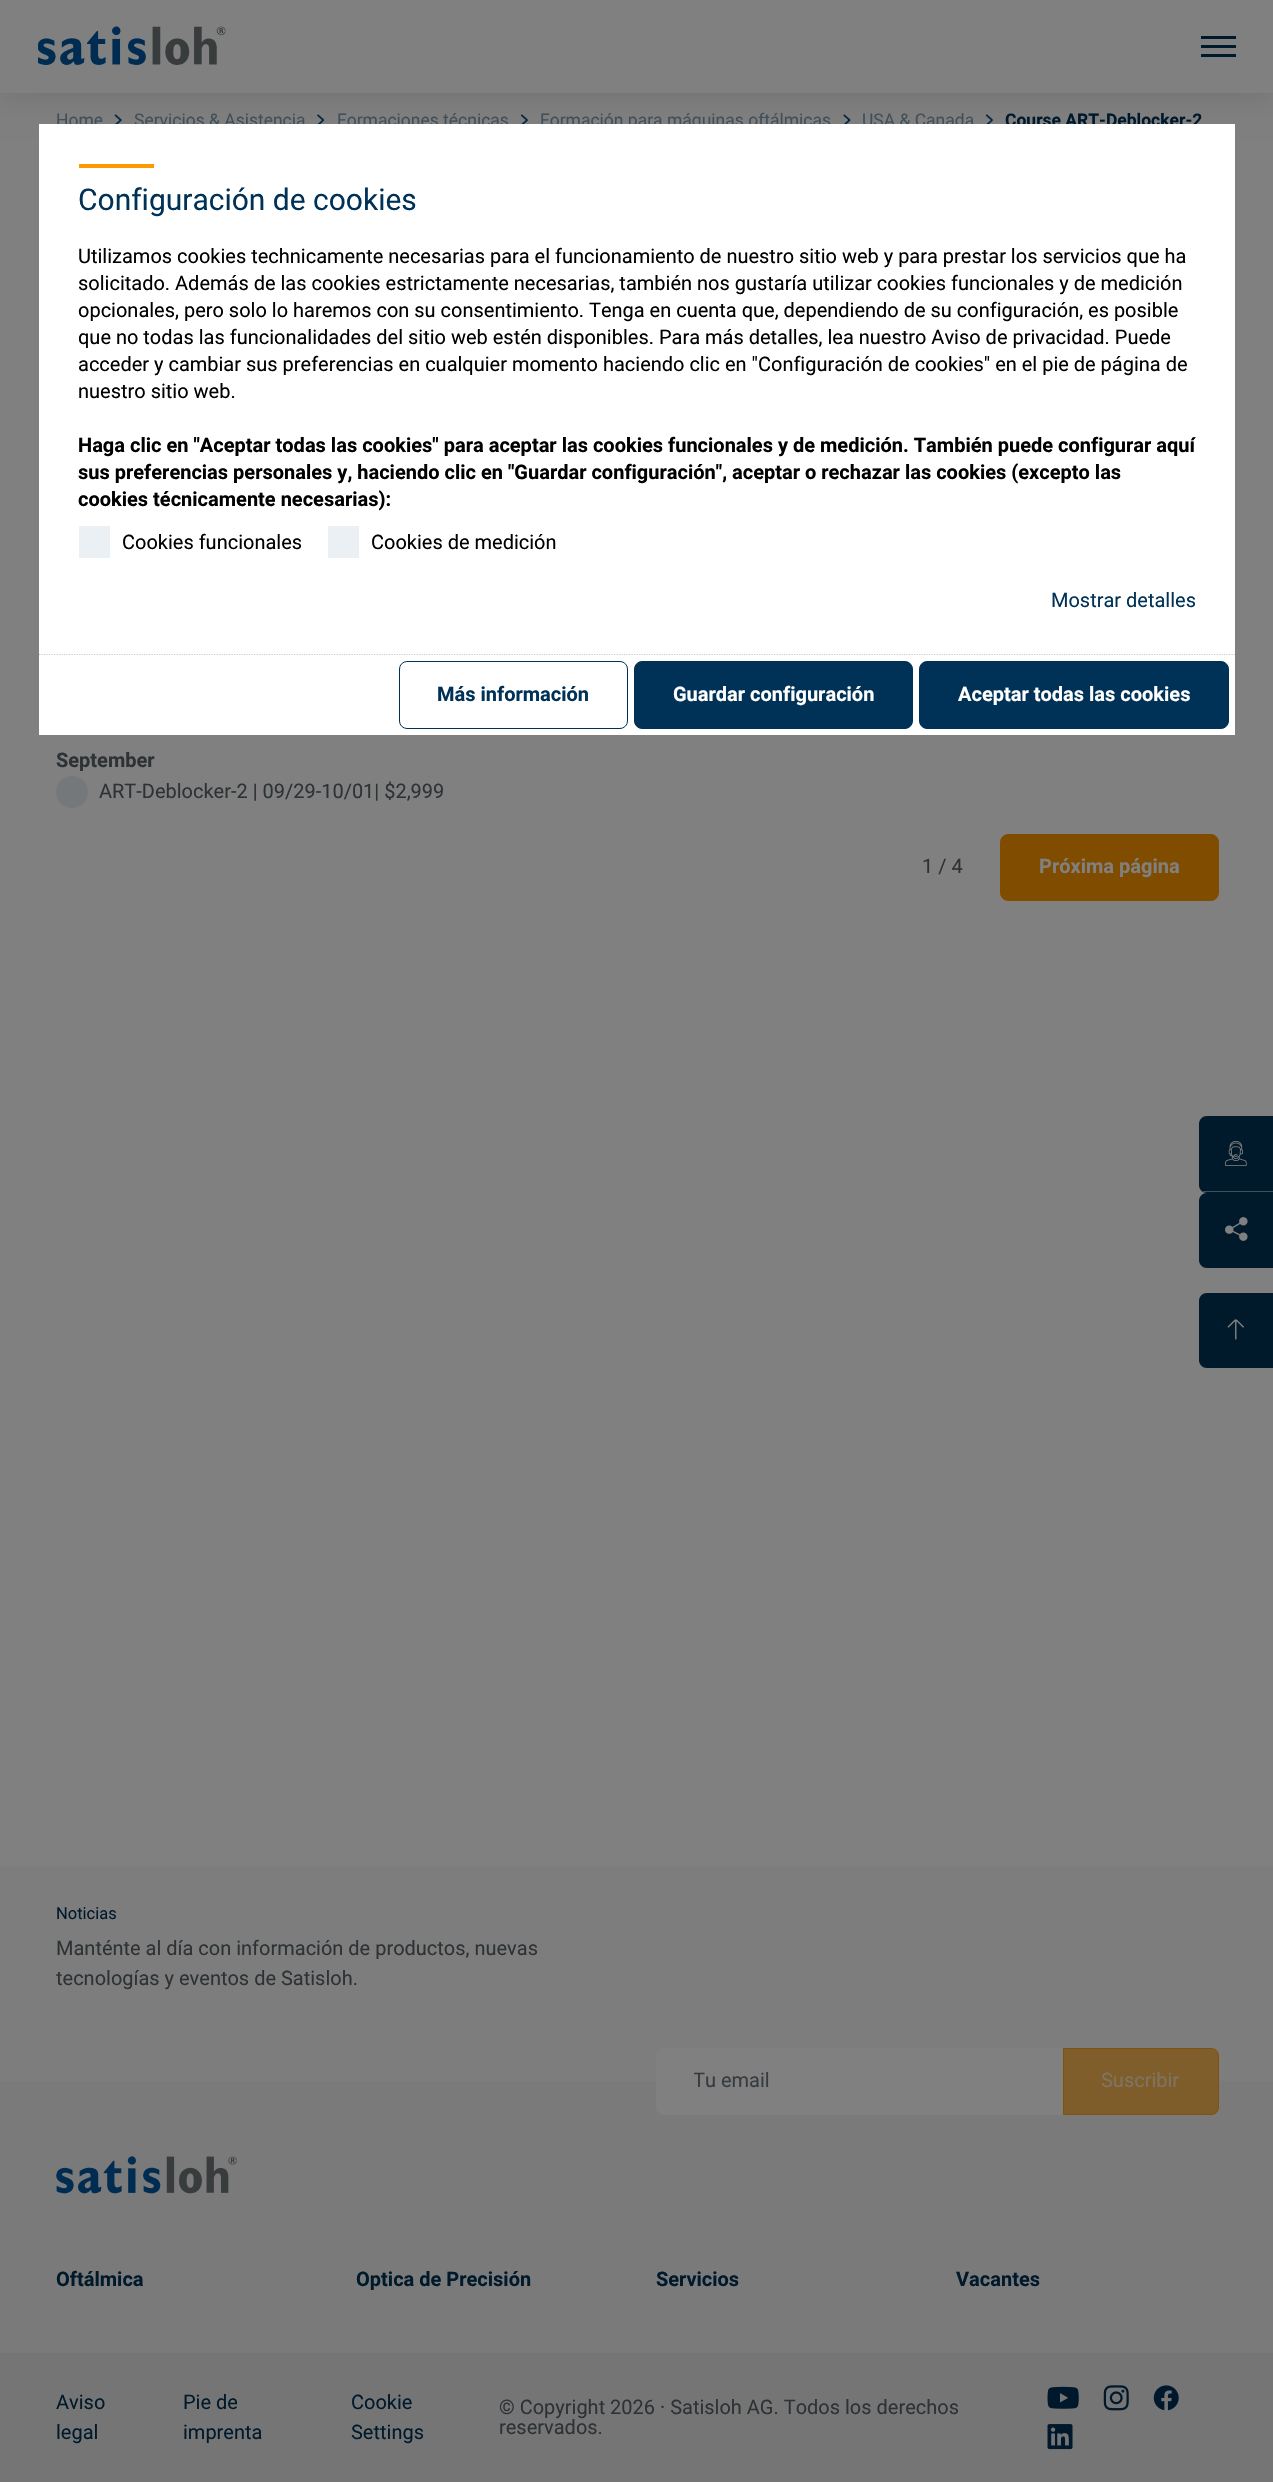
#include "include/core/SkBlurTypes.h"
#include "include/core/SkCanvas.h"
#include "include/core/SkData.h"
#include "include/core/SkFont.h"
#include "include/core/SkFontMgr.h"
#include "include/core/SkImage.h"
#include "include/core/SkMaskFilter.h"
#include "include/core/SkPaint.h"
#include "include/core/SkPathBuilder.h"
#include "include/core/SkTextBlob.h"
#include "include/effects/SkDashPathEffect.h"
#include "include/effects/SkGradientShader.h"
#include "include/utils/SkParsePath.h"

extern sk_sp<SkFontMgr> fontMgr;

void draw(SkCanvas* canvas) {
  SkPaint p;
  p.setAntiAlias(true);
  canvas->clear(SkColorSetRGB(128, 128, 128));
  canvas->drawImageRect(SkImages::DeferredFromEncodedData(SkData::MakeFromFileName("images/2.png")), SkRect::MakeLTRB(114, 114, 122, 124), SkSamplingOptions());
  canvas->drawImageRect(SkImages::DeferredFromEncodedData(SkData::MakeFromFileName("images/3.png")), SkRect::MakeLTRB(317, 114, 325, 124), SkSamplingOptions());
  canvas->drawImageRect(SkImages::DeferredFromEncodedData(SkData::MakeFromFileName("images/4.png")), SkRect::MakeLTRB(520, 114, 528, 124), SkSamplingOptions());
  canvas->drawImageRect(SkImages::DeferredFromEncodedData(SkData::MakeFromFileName("images/5.png")), SkRect::MakeLTRB(843, 114, 851, 124), SkSamplingOptions());
  canvas->drawImageRect(SkImages::DeferredFromEncodedData(SkData::MakeFromFileName("images/4.png")), SkRect::MakeLTRB(985, 114, 993, 124), SkSamplingOptions());
  p.setColor(SkColorSetARGB(26, 0, 0, 0));
  p.setMaskFilter(SkMaskFilter::MakeBlur(kNormal_SkBlurStyle, 14));
  canvas->drawRect(SkRect::MakeLTRB(0, 5, 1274, 98), p);
  p.setMaskFilter(nullptr);
  p.setColor(SkColorSetRGB(128, 128, 128));
  canvas->drawRect(SkRect::MakeLTRB(0, 0, 1273, 93), p);
  canvas->drawImageRect(SkImages::DeferredFromEncodedData(SkData::MakeFromFileName("images/1.png")), SkRect::MakeLTRB(38, 26, 226, 65), SkSamplingOptions());
  p.setColor(SkColorSetRGB(0, 25, 43));
  canvas->drawRect(SkRect::MakeLTRB(1201, 36, 1236, 39), p);
  canvas->drawRect(SkRect::MakeLTRB(1201, 45, 1236, 48), p);
  canvas->drawRect(SkRect::MakeLTRB(1201, 54, 1236, 57), p);
  p.setColor(SkColorSetRGB(117, 120, 122));
  canvas->drawCircle(72, 792, 16, p);
  p.setColor(SkColorSetRGB(128, 77, 0));
  canvas->drawRoundRect(SkRect::MakeLTRB(1000.5f, 834.5f, 1218.5f, 900.5f), 7.5f, 7.5f, p);
  p.setStyle(SkPaint::kStroke_Style);
  p.setStrokeWidth(1);
  canvas->drawRoundRect(SkRect::MakeLTRB(1000.5f, 834.5f, 1218.5f, 900.5f), 7.5f, 7.5f, p);
  p.setStyle(SkPaint::kFill_Style);
  p.setColor(SkColorSetRGB(0, 25, 43));
  canvas->drawPath(SkPathBuilder().moveTo(1207, 1116).lineTo(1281, 1116).lineTo(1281, 1193).lineTo(1207, 1193).cubicTo(1202.5f, 1193, 1199, 1189.5f, 1199, 1185).lineTo(1199, 1124).cubicTo(1199, 1119.5f, 1202.5f, 1116, 1207, 1116).close().detach(), p);
  p.setColor(SkColorSetRGB(65, 79, 89));
  canvas->drawRect(SkRect::MakeLTRB(1203, 1191, 1273, 1192), p);
  canvas->drawImageRect(SkImages::DeferredFromEncodedData(SkData::MakeFromFileName("images/6.png")), SkRect::MakeLTRB(1225, 1140, 1247, 1166), SkSamplingOptions());
  p.setColor(SkColorSetRGB(0, 25, 43));
  canvas->drawPath(SkPathBuilder().moveTo(1207, 1193).lineTo(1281, 1193).lineTo(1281, 1268).lineTo(1207, 1268).cubicTo(1202.5f, 1268, 1199, 1264.5f, 1199, 1260).lineTo(1199, 1201).cubicTo(1199, 1196.5f, 1202.5f, 1193, 1207, 1193).close().detach(), p);
  canvas->drawImageRect(SkImages::DeferredFromEncodedData(SkData::MakeFromFileName("images/7.png")), SkRect::MakeLTRB(1225, 1217, 1248, 1241), SkSamplingOptions());
  canvas->drawPath(SkPathBuilder().moveTo(1207, 1293).lineTo(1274, 1293).lineTo(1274, 1368).lineTo(1207, 1368).cubicTo(1202.5f, 1368, 1199, 1364.5f, 1199, 1360).lineTo(1199, 1301).cubicTo(1199, 1296.5f, 1202.5f, 1293, 1207, 1293).close().detach(), p);
  canvas->drawImageRect(SkImages::DeferredFromEncodedData(SkData::MakeFromFileName("images/8.png")), SkRect::MakeLTRB(1227, 1319, 1244, 1340), SkSamplingOptions());
  p.setColor(SkColorSetRGB(125, 125, 125));
  canvas->drawRect(SkRect::MakeLTRB(0, 1866, 1273, 2081), p);
  p.setColor(SkColorSetRGB(122, 122, 122));
  canvas->drawRect(SkRect::MakeLTRB(0, 2081, 1273, 2353), p);
  p.setColor(SkColorSetRGB(128, 128, 128));
  canvas->drawPath(SkPathBuilder().moveTo(664, 2048).lineTo(1064, 2048).lineTo(1064, 2115).lineTo(664, 2115).cubicTo(659.5f, 2115, 656, 2111.5f, 656, 2107).lineTo(656, 2056).cubicTo(656, 2051.5f, 659.5f, 2048, 664, 2048).close().detach(), p);
  p.setColor(SkColorSetARGB(166, 128, 77, 0));
  canvas->drawPath(SkPathBuilder().moveTo(1063, 2048).lineTo(1211, 2048).cubicTo(1215.5f, 2048, 1219, 2051.5f, 1219, 2056).lineTo(1219, 2107).cubicTo(1219, 2111.5f, 1215.5f, 2115, 1211, 2115).lineTo(1063, 2115).close().detach(), p);
  p.setStyle(SkPaint::kStroke_Style);
  canvas->drawPath(SkPathBuilder().moveTo(1063.5f, 2048.5f).lineTo(1211, 2048.5f).cubicTo(1215, 2048.5f, 1218.5f, 2052, 1218.5f, 2056).lineTo(1218.5f, 2107).cubicTo(1218.5f, 2111, 1215, 2114.5f, 1211, 2114.5f).lineTo(1063.5f, 2114.5f).close().detach(), p);
  canvas->drawImageRect(SkImages::DeferredFromEncodedData(SkData::MakeFromFileName("images/9.png")), SkRect::MakeLTRB(56, 2156, 237, 2194), SkSamplingOptions());
  p.setStyle(SkPaint::kFill_Style);
  p.setColor(SkColorSetRGB(117, 117, 117));
  canvas->drawRect(SkRect::MakeLTRB(0, 2353, 1273, 2482), p);
  canvas->drawImageRect(SkImages::DeferredFromEncodedData(SkData::MakeFromFileName("images/10.png")), SkRect::MakeLTRB(1047, 2386, 1079, 2409), SkSamplingOptions());
  canvas->drawImageRect(SkImages::DeferredFromEncodedData(SkData::MakeFromFileName("images/11.png")), SkRect::MakeLTRB(1103, 2385, 1129, 2411), SkSamplingOptions());
  canvas->drawImageRect(SkImages::DeferredFromEncodedData(SkData::MakeFromFileName("images/12.png")), SkRect::MakeLTRB(1153, 2385, 1179, 2411), SkSamplingOptions());
  canvas->drawImageRect(SkImages::DeferredFromEncodedData(SkData::MakeFromFileName("images/13.png")), SkRect::MakeLTRB(1047, 2424, 1073, 2450), SkSamplingOptions());
  SkFont font1(fontMgr->matchFamilyStyle("Roboto", SkFontStyle::Normal()), 17.5f);
  font1.setSubpixel(true);
  p.setColor(SkColorSetRGB(65, 79, 89));
  canvas->drawString("Home", 56, 126, font1, p);
  canvas->drawString("Servicios & Asistencia", 134, 126, font1, p);
  canvas->drawString("Formaciones técnicas", 337, 126, font1, p);
  canvas->drawString("Formación para máquinas oftálmicas", 540, 126, font1, p);
  canvas->drawString("USA & Canada", 862, 126, font1, p);
  SkFont font2(fontMgr->matchFamilyStyle("Roboto", SkFontStyle::Bold()), 17.5f);
  font2.setSubpixel(true);
  p.setColor(SkColorSetRGB(0, 25, 43));
  canvas->drawString("Course ART-Deblocker-2", 1005, 126, font2, p);
  SkFont font3(fontMgr->matchFamilyStyle("Roboto", SkFontStyle::Bold()), 20);
  font3.setSubpixel(true);
  p.setColor(SkColorSetRGB(45, 50, 53));
  canvas->drawString("September", 56, 767, font3, p);
  SkFont font4(fontMgr->matchFamilyStyle("Roboto", SkFontStyle::Normal()), 20);
  font4.setSubpixel(true);
  canvas->drawString("ART-Deblocker-2 | 09/29-10/01| $2,999", 99, 798, font4, p);
  canvas->drawString("1 / 4", 922, 873, font4, p);
  p.setColor(SkColorSetRGB(128, 128, 128));
  canvas->drawString("Próxima página", 1039, 873, font3, p);
  p.setColor(SK_ColorWHITE);
  canvas->drawRect(SkRect::MakeLTRB(39, 124, 1235, 735), p);
  p.setColor(SkColorSetRGB(255, 153, 0));
  canvas->drawRect(SkRect::MakeLTRB(79, 164, 154, 168), p);
  SkFont font5(fontMgr->matchFamilyStyle("Roboto", SkFontStyle::Normal()), 30);
  font5.setSubpixel(true);
  p.setColor(SkColorSetRGB(0, 49, 86));
  canvas->drawString("Configuración de cookies", 78, 210, font5, p);
  p.setColor(SK_ColorBLACK);
  canvas->drawString("Utilizamos cookies technicamente necesarias para el funcionamiento de nuestro sitio web y para prestar los servicios que ha", 78, 263, font4, p);
  canvas->drawString("solicitado. Además de las cookies estrictamente necesarias, también nos gustaría utilizar cookies funcionales y de medición", 78, 290, font4, p);
  canvas->drawString("opcionales, pero solo lo haremos con su consentimiento. Tenga en cuenta que, dependiendo de su configuración, es posible", 78, 317, font4, p);
  canvas->drawString("que no todas las funcionalidades del sitio web estén disponibles. Para más detalles, lea nuestro Aviso de privacidad. Puede", 78, 344, font4, p);
  canvas->drawString("acceder y cambiar sus preferencias en cualquier momento haciendo clic en \"Configuración de cookies\" en el pie de página de", 78, 371, font4, p);
  canvas->drawString("nuestro sitio web.", 78, 398, font4, p);
  canvas->drawString("Haga clic en \"Aceptar todas las cookies\" para aceptar las cookies funcionales y de medición. También puede configurar aquí", 78, 452, font3, p);
  canvas->drawString("sus preferencias personales y, haciendo clic en \"Guardar configuración\", aceptar o rechazar las cookies (excepto las", 78, 479, font3, p);
  canvas->drawString("cookies técnicamente necesarias):", 78, 506, font3, p);
  p.setColor(SkColorSetRGB(234, 240, 244));
  canvas->drawRect(SkRect::MakeLTRB(79, 526, 110, 558), p);
  p.setColor(SK_ColorBLACK);
  canvas->drawString("Cookies funcionales", 122, 549, font4, p);
  p.setColor(SkColorSetRGB(234, 240, 244));
  canvas->drawRect(SkRect::MakeLTRB(328, 526, 359, 558), p);
  p.setColor(SK_ColorBLACK);
  canvas->drawString("Cookies de medición", 371, 549, font4, p);
  p.setColor(SkColorSetRGB(0, 49, 86));
  canvas->drawString("Mostrar detalles", 1051, 607, font4, p);
  p.setStyle(SkPaint::kStroke_Style);
  p.setStrokeWidth(1.2f);
  p.setColor(SkColorSetRGB(204, 204, 204));
  p.setPathEffect(SkDashPathEffect::Make({{1.25f, 1.25f}}, 0));
  canvas->drawPath(SkPathBuilder().moveTo(39, 654.5f).lineTo(1235, 654.5f).detach(), p);
  p.setPathEffect(nullptr);
  p.setStrokeWidth(1);
  p.setColor(SkColorSetRGB(0, 49, 86));
  canvas->drawRoundRect(SkRect::MakeLTRB(399.5f, 661.5f, 627.5f, 728.5f), 7.5f, 7.5f, p);
  p.setStyle(SkPaint::kFill_Style);
  canvas->drawString("Más información", 437, 701, font3, p);
  canvas->drawRoundRect(SkRect::MakeLTRB(634.5f, 661.5f, 912.5f, 728.5f), 7.5f, 7.5f, p);
  p.setStyle(SkPaint::kStroke_Style);
  canvas->drawRoundRect(SkRect::MakeLTRB(634.5f, 661.5f, 912.5f, 728.5f), 7.5f, 7.5f, p);
  p.setStyle(SkPaint::kFill_Style);
  p.setColor(SK_ColorWHITE);
  canvas->drawString("Guardar configuración", 673, 701, font3, p);
  p.setColor(SkColorSetRGB(0, 49, 86));
  canvas->drawRoundRect(SkRect::MakeLTRB(919.5f, 661.5f, 1228.5f, 728.5f), 7.5f, 7.5f, p);
  p.setStyle(SkPaint::kStroke_Style);
  canvas->drawRoundRect(SkRect::MakeLTRB(919.5f, 661.5f, 1228.5f, 728.5f), 7.5f, 7.5f, p);
  p.setStyle(SkPaint::kFill_Style);
  p.setColor(SK_ColorWHITE);
  canvas->drawString("Aceptar todas las cookies", 958, 701, font3, p);
  SkFont font6(fontMgr->matchFamilyStyle("Roboto", SkFontStyle::Normal()), 16.5f);
  font6.setSubpixel(true);
  p.setColor(SkColorSetRGB(0, 25, 43));
  canvas->drawString("Noticias", 56, 1919, font6, p);
  p.setColor(SkColorSetRGB(45, 50, 53));
  canvas->drawString("Manténte al día con información de productos, nuevas", 56, 1955, font4, p);
  canvas->drawString("tecnologías y eventos de Satisloh.", 56, 1985, font4, p);
  canvas->save();
  canvas->clipRect(SkRect::MakeLTRB(694, 2069, 1026, 2093));
  p.setColor(SkColorSetRGB(54, 59, 63));
  canvas->drawString("Tu email", 693, 2087, font4, p);
  canvas->restore();
  p.setColor(SkColorSetRGB(127, 116, 98));
  canvas->drawString("Suscribir", 1101, 2087, font4, p);
  p.setColor(SkColorSetRGB(0, 25, 43));
  canvas->drawString("Oftálmica", 56, 2286, font3, p);
  canvas->drawString("Optica de Precisión", 356, 2286, font3, p);
  canvas->drawString("Servicios", 656, 2286, font3, p);
  canvas->drawString("Vacantes", 956, 2286, font3, p);
  canvas->drawString("Aviso", 56, 2409, font4, p);
  canvas->drawString("legal", 56, 2439, font4, p);
  canvas->drawString("Pie de", 183, 2409, font4, p);
  canvas->drawString("imprenta", 183, 2439, font4, p);
  canvas->drawString("Cookie", 351, 2409, font4, p);
  canvas->drawString("Settings", 351, 2439, font4, p);
  p.setColor(SkColorSetRGB(45, 50, 53));
  canvas->drawString("© Copyright 2026 · Satisloh AG. Todos los derechos", 499, 2414, font4, p);
  canvas->drawString("reservados.", 499, 2434, font4, p);
}
